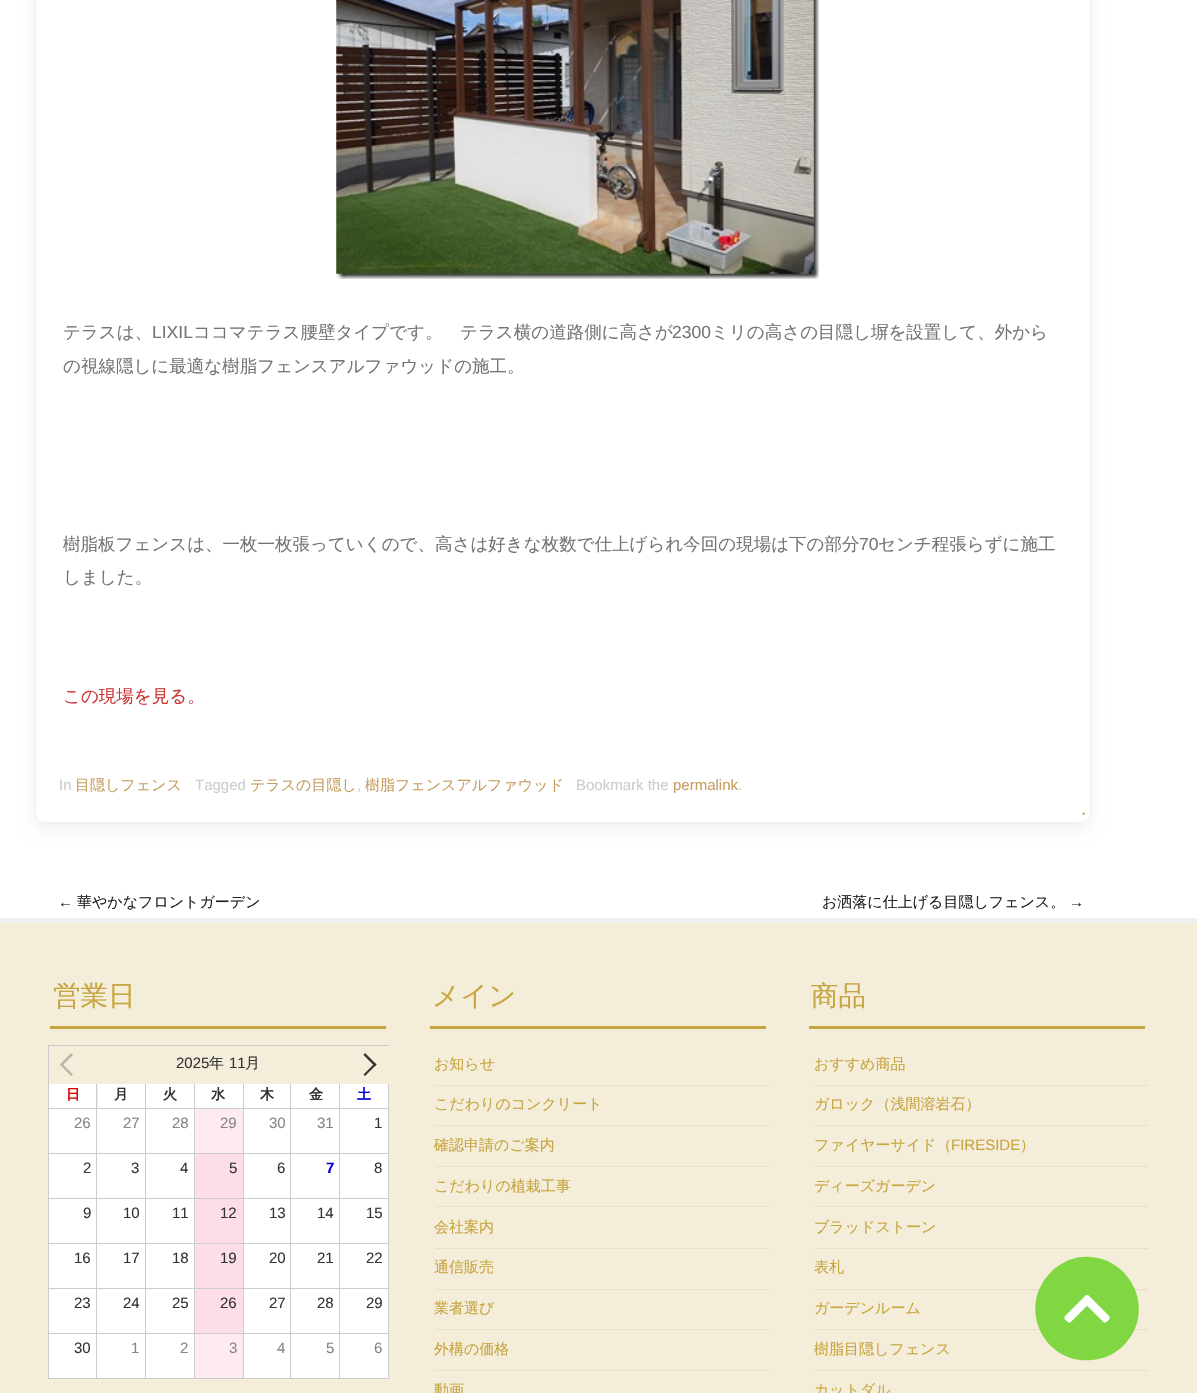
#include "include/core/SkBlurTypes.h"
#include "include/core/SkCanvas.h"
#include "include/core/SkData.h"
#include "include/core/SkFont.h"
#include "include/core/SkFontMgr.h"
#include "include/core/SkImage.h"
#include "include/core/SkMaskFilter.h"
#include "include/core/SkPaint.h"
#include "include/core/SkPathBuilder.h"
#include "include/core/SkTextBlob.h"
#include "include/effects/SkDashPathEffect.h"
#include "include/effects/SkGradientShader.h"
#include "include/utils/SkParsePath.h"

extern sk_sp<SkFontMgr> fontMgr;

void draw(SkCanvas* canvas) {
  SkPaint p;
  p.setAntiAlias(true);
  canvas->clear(SK_ColorWHITE);
  canvas->save();
  canvas->clipPath(SkPathBuilder(SkPathFillType::kEvenOdd).moveTo(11, 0).lineTo(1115, 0).lineTo(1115, 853).lineTo(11, 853).close().moveTo(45, -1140).lineTo(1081, -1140).cubicTo(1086.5f, -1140, 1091, -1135.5f, 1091, -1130).lineTo(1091, 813).cubicTo(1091, 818.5f, 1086.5f, 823, 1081, 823).lineTo(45, 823).cubicTo(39.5f, 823, 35, 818.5f, 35, 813).lineTo(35, -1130).cubicTo(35, -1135.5f, 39.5f, -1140, 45, -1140).close().detach(), true);
  p.setColor(SkColorSetARGB(15, 0, 0, 0));
  p.setMaskFilter(SkMaskFilter::MakeBlur(kNormal_SkBlurStyle, 7.5f));
  canvas->drawRoundRect(SkRect::MakeLTRB(35, -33, 1091, 829), 10, 10, p);
  p.setMaskFilter(nullptr);
  canvas->restore();
  p.setStyle(SkPaint::kStroke_Style);
  p.setStrokeWidth(1);
  p.setColor(SkColorSetRGB(239, 239, 239));
  canvas->drawRoundRect(SkRect::MakeLTRB(35.5f, -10.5f, 1090.5f, 822.5f), 9.5f, 9.5f, p);
  canvas->drawImageRect(SkImages::DeferredFromEncodedData(SkData::MakeFromFileName("images/1.png")), SkRect::MakeLTRB(336, 0, 819, 279), SkSamplingOptions());
  p.setStyle(SkPaint::kFill_Style);
  p.setColor(SkColorSetRGB(244, 237, 217));
  canvas->drawRect(SkRect::MakeLTRB(0, 923, 1197, 1393), p);
  p.setColor(SkColorSetRGB(239, 239, 239));
  canvas->drawRect(SkRect::MakeLTRB(0, 918, 1197, 923), p);
  p.setColor(SkColorSetRGB(199, 165, 63));
  canvas->drawRect(SkRect::MakeLTRB(50, 1026, 386, 1029), p);
  p.setColor(SkColorSetRGB(204, 204, 204));
  canvas->drawRect(SkRect::MakeLTRB(48, 1045, 389, 1046), p);
  canvas->drawRect(SkRect::MakeLTRB(48, 1378, 389, 1379), p);
  canvas->drawRect(SkRect::MakeLTRB(48, 1045, 49, 1379), p);
  p.setColor(SkColorSetRGB(186, 181, 167));
  canvas->drawPath(SkPathBuilder().moveTo(61.5f, 1063).lineTo(73, 1074.5f).lineTo(71, 1076).lineTo(60, 1064.5f).close().detach(), p);
  canvas->drawPath(SkPathBuilder().moveTo(71, 1053).lineTo(73, 1055).lineTo(61.5f, 1066.5f).lineTo(60, 1064.5f).close().detach(), p);
  p.setColor(SkColorSetRGB(51, 51, 51));
  canvas->drawPath(SkPathBuilder().moveTo(365, 1053).lineTo(376.5f, 1064.5f).lineTo(375, 1066.5f).lineTo(363.5f, 1055).close().detach(), p);
  canvas->drawPath(SkPathBuilder().moveTo(375, 1063).lineTo(376.5f, 1064.5f).lineTo(365, 1076).lineTo(363.5f, 1074.5f).close().detach(), p);
  p.setColor(SK_ColorWHITE);
  canvas->drawRect(SkRect::MakeLTRB(49, 1084, 96, 1108), p);
  p.setColor(SkColorSetRGB(204, 204, 204));
  canvas->drawRect(SkRect::MakeLTRB(96, 1084, 97, 1108), p);
  p.setColor(SK_ColorWHITE);
  canvas->drawRect(SkRect::MakeLTRB(98, 1084, 145, 1108), p);
  p.setColor(SkColorSetRGB(204, 204, 204));
  canvas->drawRect(SkRect::MakeLTRB(145, 1084, 146, 1108), p);
  p.setColor(SK_ColorWHITE);
  canvas->drawRect(SkRect::MakeLTRB(146, 1084, 194, 1108), p);
  p.setColor(SkColorSetRGB(204, 204, 204));
  canvas->drawRect(SkRect::MakeLTRB(194, 1084, 195, 1108), p);
  p.setColor(SK_ColorWHITE);
  canvas->drawRect(SkRect::MakeLTRB(195, 1084, 243, 1108), p);
  p.setColor(SkColorSetRGB(204, 204, 204));
  canvas->drawRect(SkRect::MakeLTRB(243, 1084, 244, 1108), p);
  p.setColor(SK_ColorWHITE);
  canvas->drawRect(SkRect::MakeLTRB(244, 1084, 290, 1108), p);
  p.setColor(SkColorSetRGB(204, 204, 204));
  canvas->drawRect(SkRect::MakeLTRB(290, 1084, 291, 1108), p);
  p.setColor(SK_ColorWHITE);
  canvas->drawRect(SkRect::MakeLTRB(291, 1084, 339, 1108), p);
  p.setColor(SkColorSetRGB(204, 204, 204));
  canvas->drawRect(SkRect::MakeLTRB(339, 1084, 340, 1108), p);
  p.setColor(SK_ColorWHITE);
  canvas->drawRect(SkRect::MakeLTRB(340, 1084, 388, 1108), p);
  p.setColor(SkColorSetRGB(204, 204, 204));
  canvas->drawRect(SkRect::MakeLTRB(388, 1084, 389, 1108), p);
  p.setColor(SK_ColorWHITE);
  canvas->drawRect(SkRect::MakeLTRB(49, 1109, 388, 1153), p);
  p.setColor(SkColorSetRGB(204, 204, 204));
  canvas->drawRect(SkRect::MakeLTRB(49, 1108, 389, 1109), p);
  canvas->drawRect(SkRect::MakeLTRB(96, 1108, 97, 1153), p);
  canvas->drawRect(SkRect::MakeLTRB(145, 1108, 146, 1153), p);
  canvas->drawRect(SkRect::MakeLTRB(194, 1108, 195, 1153), p);
  canvas->drawRect(SkRect::MakeLTRB(243, 1108, 244, 1153), p);
  p.setColor(SkColorSetRGB(254, 235, 240));
  canvas->drawRect(SkRect::MakeLTRB(195, 1109, 243, 1153), p);
  p.setColor(SkColorSetRGB(204, 204, 204));
  canvas->drawRect(SkRect::MakeLTRB(290, 1108, 291, 1153), p);
  canvas->drawRect(SkRect::MakeLTRB(339, 1108, 340, 1153), p);
  canvas->drawRect(SkRect::MakeLTRB(388, 1108, 389, 1153), p);
  p.setColor(SK_ColorWHITE);
  canvas->drawRect(SkRect::MakeLTRB(49, 1154, 388, 1198), p);
  p.setColor(SkColorSetRGB(204, 204, 204));
  canvas->drawRect(SkRect::MakeLTRB(49, 1153, 389, 1154), p);
  canvas->drawRect(SkRect::MakeLTRB(96, 1153, 97, 1198), p);
  canvas->drawRect(SkRect::MakeLTRB(145, 1153, 146, 1198), p);
  canvas->drawRect(SkRect::MakeLTRB(194, 1153, 195, 1198), p);
  canvas->drawRect(SkRect::MakeLTRB(243, 1153, 244, 1198), p);
  p.setColor(SkColorSetRGB(253, 221, 230));
  canvas->drawRect(SkRect::MakeLTRB(195, 1154, 243, 1198), p);
  p.setColor(SkColorSetRGB(204, 204, 204));
  canvas->drawRect(SkRect::MakeLTRB(290, 1153, 291, 1198), p);
  canvas->drawRect(SkRect::MakeLTRB(339, 1153, 340, 1198), p);
  canvas->drawRect(SkRect::MakeLTRB(388, 1153, 389, 1198), p);
  p.setColor(SK_ColorWHITE);
  canvas->drawRect(SkRect::MakeLTRB(49, 1199, 388, 1243), p);
  p.setColor(SkColorSetRGB(204, 204, 204));
  canvas->drawRect(SkRect::MakeLTRB(49, 1198, 389, 1199), p);
  canvas->drawRect(SkRect::MakeLTRB(96, 1198, 97, 1243), p);
  canvas->drawRect(SkRect::MakeLTRB(145, 1198, 146, 1243), p);
  canvas->drawRect(SkRect::MakeLTRB(194, 1198, 195, 1243), p);
  canvas->drawRect(SkRect::MakeLTRB(243, 1198, 244, 1243), p);
  p.setColor(SkColorSetRGB(253, 221, 230));
  canvas->drawRect(SkRect::MakeLTRB(195, 1199, 243, 1243), p);
  p.setColor(SkColorSetRGB(204, 204, 204));
  canvas->drawRect(SkRect::MakeLTRB(290, 1198, 291, 1243), p);
  canvas->drawRect(SkRect::MakeLTRB(339, 1198, 340, 1243), p);
  canvas->drawRect(SkRect::MakeLTRB(388, 1198, 389, 1243), p);
  p.setColor(SK_ColorWHITE);
  canvas->drawRect(SkRect::MakeLTRB(49, 1244, 388, 1288), p);
  p.setColor(SkColorSetRGB(204, 204, 204));
  canvas->drawRect(SkRect::MakeLTRB(49, 1243, 389, 1244), p);
  canvas->drawRect(SkRect::MakeLTRB(96, 1243, 97, 1288), p);
  canvas->drawRect(SkRect::MakeLTRB(145, 1243, 146, 1288), p);
  canvas->drawRect(SkRect::MakeLTRB(194, 1243, 195, 1288), p);
  canvas->drawRect(SkRect::MakeLTRB(243, 1243, 244, 1288), p);
  p.setColor(SkColorSetRGB(253, 221, 230));
  canvas->drawRect(SkRect::MakeLTRB(195, 1244, 243, 1288), p);
  p.setColor(SkColorSetRGB(204, 204, 204));
  canvas->drawRect(SkRect::MakeLTRB(290, 1243, 291, 1288), p);
  canvas->drawRect(SkRect::MakeLTRB(339, 1243, 340, 1288), p);
  canvas->drawRect(SkRect::MakeLTRB(388, 1243, 389, 1288), p);
  p.setColor(SK_ColorWHITE);
  canvas->drawRect(SkRect::MakeLTRB(49, 1289, 388, 1333), p);
  p.setColor(SkColorSetRGB(204, 204, 204));
  canvas->drawRect(SkRect::MakeLTRB(49, 1288, 389, 1289), p);
  canvas->drawRect(SkRect::MakeLTRB(96, 1288, 97, 1333), p);
  canvas->drawRect(SkRect::MakeLTRB(145, 1288, 146, 1333), p);
  canvas->drawRect(SkRect::MakeLTRB(194, 1288, 195, 1333), p);
  canvas->drawRect(SkRect::MakeLTRB(243, 1288, 244, 1333), p);
  p.setColor(SkColorSetRGB(253, 221, 230));
  canvas->drawRect(SkRect::MakeLTRB(195, 1289, 243, 1333), p);
  p.setColor(SkColorSetRGB(204, 204, 204));
  canvas->drawRect(SkRect::MakeLTRB(290, 1288, 291, 1333), p);
  canvas->drawRect(SkRect::MakeLTRB(339, 1288, 340, 1333), p);
  canvas->drawRect(SkRect::MakeLTRB(388, 1288, 389, 1333), p);
  p.setColor(SK_ColorWHITE);
  canvas->drawRect(SkRect::MakeLTRB(49, 1334, 388, 1378), p);
  p.setColor(SkColorSetRGB(204, 204, 204));
  canvas->drawRect(SkRect::MakeLTRB(49, 1333, 389, 1334), p);
  canvas->drawRect(SkRect::MakeLTRB(96, 1333, 97, 1378), p);
  canvas->drawRect(SkRect::MakeLTRB(145, 1333, 146, 1378), p);
  canvas->drawRect(SkRect::MakeLTRB(194, 1333, 195, 1378), p);
  canvas->drawRect(SkRect::MakeLTRB(243, 1333, 244, 1378), p);
  p.setColor(SkColorSetRGB(254, 235, 240));
  canvas->drawRect(SkRect::MakeLTRB(195, 1334, 243, 1378), p);
  p.setColor(SkColorSetRGB(204, 204, 204));
  canvas->drawRect(SkRect::MakeLTRB(290, 1333, 291, 1378), p);
  canvas->drawRect(SkRect::MakeLTRB(339, 1333, 340, 1378), p);
  canvas->drawRect(SkRect::MakeLTRB(388, 1333, 389, 1378), p);
  p.setColor(SkColorSetRGB(199, 165, 63));
  canvas->drawRect(SkRect::MakeLTRB(430, 1026, 766, 1029), p);
  p.setColor(SkColorSetRGB(232, 223, 199));
  canvas->drawRect(SkRect::MakeLTRB(435, 1085, 769, 1086), p);
  canvas->drawRect(SkRect::MakeLTRB(435, 1125, 769, 1126), p);
  canvas->drawRect(SkRect::MakeLTRB(435, 1166, 769, 1167), p);
  canvas->drawRect(SkRect::MakeLTRB(435, 1206, 769, 1207), p);
  canvas->drawRect(SkRect::MakeLTRB(435, 1248, 769, 1249), p);
  canvas->drawRect(SkRect::MakeLTRB(435, 1289, 769, 1290), p);
  canvas->drawRect(SkRect::MakeLTRB(435, 1329, 769, 1330), p);
  canvas->drawRect(SkRect::MakeLTRB(435, 1370, 769, 1371), p);
  p.setColor(SkColorSetRGB(199, 165, 63));
  canvas->drawRect(SkRect::MakeLTRB(809, 1026, 1145, 1029), p);
  p.setColor(SkColorSetRGB(232, 223, 199));
  canvas->drawRect(SkRect::MakeLTRB(814, 1085, 1148, 1086), p);
  canvas->drawRect(SkRect::MakeLTRB(814, 1125, 1148, 1126), p);
  canvas->drawRect(SkRect::MakeLTRB(814, 1166, 1148, 1167), p);
  canvas->drawRect(SkRect::MakeLTRB(814, 1206, 1148, 1207), p);
  canvas->drawRect(SkRect::MakeLTRB(814, 1248, 1148, 1249), p);
  canvas->drawRect(SkRect::MakeLTRB(814, 1289, 1148, 1290), p);
  canvas->drawRect(SkRect::MakeLTRB(814, 1329, 1148, 1330), p);
  canvas->drawRect(SkRect::MakeLTRB(814, 1370, 1148, 1371), p);
  p.setColor(SkColorSetRGB(129, 215, 66));
  canvas->drawPath(SkPathBuilder().moveTo(1051, 1272).cubicTo(1059, 1264, 1070, 1258, 1082, 1257).cubicTo(1130, 1253, 1158, 1311, 1124, 1345).cubicTo(1115, 1354, 1104, 1359, 1092, 1360).cubicTo(1044, 1365, 1016, 1307, 1051, 1272).close().detach(), p);
  canvas->drawImageRect(SkImages::DeferredFromEncodedData(SkData::MakeFromFileName("images/2.png")), SkRect::MakeLTRB(1064, 1294, 1110, 1323), SkSamplingOptions());
  SkFont font1(fontMgr->matchFamilyStyle("WenQuanYi Zen Hei", SkFontStyle(500, SkFontStyle::kNormal_Width, SkFontStyle::kUpright_Slant)), 17.5f);
  font1.setSubpixel(true);
  p.setColor(SkColorSetRGB(116, 116, 116));
  canvas->drawString("テラスは、", 63, 338, font1, p);
  SkFont font2(fontMgr->matchFamilyStyle("Liberation Sans", SkFontStyle::Normal()), 17.5f);
  font2.setSubpixel(true);
  canvas->drawString("LIXIL", 152, 338, font2, p);
  canvas->drawString("ココマテラス腰壁タイプです。　テラス横の道路側に高さが", 193, 338, font1, p);
  canvas->drawString("2300", 672, 338, font2, p);
  canvas->drawString("ミリの高さの目隠し塀を設置して、外から", 711, 338, font1, p);
  canvas->drawString("の視線隠しに最適な樹脂フェンスアルファウッドの施工。", 63, 372, font1, p);
  canvas->drawString("樹脂板フェンスは、一枚一枚張っていくので、高さは好きな枚数で仕上げられ今回の現場は下の部分", 63, 550, font1, p);
  canvas->drawString("70", 859, 550, font2, p);
  canvas->drawString("センチ程張らずに施工", 878, 550, font1, p);
  canvas->drawString("しました。", 63, 583, font1, p);
  p.setColor(SkColorSetRGB(204, 51, 51));
  canvas->drawString("この現場を見る。", 63, 702, font1, p);
  SkFont font3(fontMgr->matchFamilyStyle("Liberation Sans", SkFontStyle::Normal()), 15);
  font3.setSubpixel(true);
  p.setColor(SkColorSetRGB(204, 204, 204));
  canvas->drawString("In", 59, 790, font3, p);
  SkFont font4(fontMgr->matchFamilyStyle("WenQuanYi Zen Hei", SkFontStyle(500, SkFontStyle::kNormal_Width, SkFontStyle::kUpright_Slant)), 15);
  font4.setSubpixel(true);
  p.setColor(SkColorSetRGB(197, 157, 95));
  canvas->drawString("目隠しフェンス", 75, 790, font4, p);
  p.setColor(SkColorSetRGB(204, 204, 204));
  canvas->drawString("Tagged", 195, 790, font3, p);
  p.setColor(SkColorSetRGB(197, 157, 95));
  canvas->drawString("テラスの目隠し", 250, 790, font4, p);
  p.setColor(SkColorSetRGB(204, 204, 204));
  canvas->drawString(",", 357, 790, font3, p);
  p.setColor(SkColorSetRGB(197, 157, 95));
  canvas->drawString("樹脂フェンスアルファウッド", 365, 790, font4, p);
  p.setColor(SkColorSetRGB(204, 204, 204));
  canvas->drawString("Bookmark the", 576, 790, font3, p);
  p.setColor(SkColorSetRGB(197, 157, 95));
  canvas->drawString("permalink", 673, 790, font3, p);
  p.setColor(SkColorSetRGB(204, 204, 204));
  canvas->drawString(".", 738, 790, font3, p);
  p.setColor(SkColorSetRGB(197, 157, 95));
  canvas->drawString("・", 1076, 819, font4, p);
  p.setColor(SkColorSetRGB(34, 34, 34));
  canvas->drawString("←", 58, 907, font3, p);
  canvas->drawString("華やかなフロントガーデン", 77, 907, font4, p);
  canvas->drawString("お洒落に仕上げる目隠しフェンス。", 822, 907, font4, p);
  canvas->drawString("→", 1069, 907, font3, p);
  SkFont font5(fontMgr->matchFamilyStyle("WenQuanYi Zen Hei", SkFontStyle(500, SkFontStyle::kNormal_Width, SkFontStyle::kUpright_Slant)), 27.5f);
  font5.setSubpixel(true);
  p.setColor(SkColorSetRGB(199, 165, 63));
  canvas->drawString("営業日", 53, 1005, font5, p);
  p.setColor(SkColorSetRGB(51, 51, 51));
  canvas->drawString("2025", 176, 1068, font3, p);
  canvas->drawString("年", 209, 1068, font4, p);
  canvas->drawString("11", 229, 1068, font3, p);
  canvas->drawString("月", 245, 1068, font4, p);
  SkFont font6(fontMgr->matchFamilyStyle("WenQuanYi Zen Hei", SkFontStyle::Bold()), 14);
  font6.setSubpixel(true);
  p.setColor(SkColorSetRGB(221, 0, 0));
  canvas->drawString("日", 66, 1099, font6, p);
  p.setColor(SkColorSetRGB(51, 51, 51));
  canvas->drawString("月", 114, 1099, font6, p);
  canvas->drawString("火", 163, 1099, font6, p);
  canvas->drawString("水", 211, 1099, font6, p);
  canvas->drawString("木", 260, 1099, font6, p);
  canvas->drawString("金", 309, 1099, font6, p);
  p.setColor(SkColorSetRGB(0, 0, 221));
  canvas->drawString("土", 357, 1099, font6, p);
  p.setColor(SkColorSetRGB(133, 133, 133));
  canvas->drawString("26", 74, 1128, font3, p);
  canvas->drawString("27", 123, 1128, font3, p);
  canvas->drawString("28", 172, 1128, font3, p);
  canvas->drawString("29", 220, 1128, font3, p);
  canvas->drawString("30", 269, 1128, font3, p);
  canvas->drawString("31", 317, 1128, font3, p);
  p.setColor(SkColorSetRGB(51, 51, 51));
  canvas->drawString("1", 374, 1128, font3, p);
  canvas->drawString("2", 83, 1173, font3, p);
  canvas->drawString("3", 131, 1173, font3, p);
  canvas->drawString("4", 180, 1173, font3, p);
  canvas->drawString("5", 229, 1173, font3, p);
  canvas->drawString("6", 277, 1173, font3, p);
  SkFont font7(fontMgr->matchFamilyStyle("Liberation Sans", SkFontStyle::Bold()), 15);
  font7.setSubpixel(true);
  p.setColor(SkColorSetRGB(0, 0, 221));
  canvas->drawString("7", 326, 1173, font7, p);
  p.setColor(SkColorSetRGB(51, 51, 51));
  canvas->drawString("8", 374, 1173, font3, p);
  canvas->drawString("9", 83, 1218, font3, p);
  canvas->drawString("10", 123, 1218, font3, p);
  canvas->drawString("11", 172, 1218, font3, p);
  canvas->drawString("12", 220, 1218, font3, p);
  canvas->drawString("13", 269, 1218, font3, p);
  canvas->drawString("14", 317, 1218, font3, p);
  canvas->drawString("15", 366, 1218, font3, p);
  canvas->drawString("16", 74, 1263, font3, p);
  canvas->drawString("17", 123, 1263, font3, p);
  canvas->drawString("18", 172, 1263, font3, p);
  canvas->drawString("19", 220, 1263, font3, p);
  canvas->drawString("20", 269, 1263, font3, p);
  canvas->drawString("21", 317, 1263, font3, p);
  canvas->drawString("22", 366, 1263, font3, p);
  canvas->drawString("23", 74, 1308, font3, p);
  canvas->drawString("24", 123, 1308, font3, p);
  canvas->drawString("25", 172, 1308, font3, p);
  canvas->drawString("26", 220, 1308, font3, p);
  canvas->drawString("27", 269, 1308, font3, p);
  canvas->drawString("28", 317, 1308, font3, p);
  canvas->drawString("29", 366, 1308, font3, p);
  canvas->drawString("30", 74, 1353, font3, p);
  p.setColor(SkColorSetRGB(133, 133, 133));
  canvas->drawString("1", 131, 1353, font3, p);
  canvas->drawString("2", 180, 1353, font3, p);
  canvas->drawString("3", 229, 1353, font3, p);
  canvas->drawString("4", 277, 1353, font3, p);
  canvas->drawString("5", 326, 1353, font3, p);
  canvas->drawString("6", 374, 1353, font3, p);
  p.setColor(SkColorSetRGB(199, 165, 63));
  canvas->drawString("メイン", 432, 1005, font5, p);
  canvas->drawString("お知らせ", 434, 1069, font4, p);
  canvas->drawString("こだわりのコンクリート", 434, 1109, font4, p);
  canvas->drawString("確認申請のご案内", 434, 1150, font4, p);
  canvas->drawString("こだわりの植栽工事", 434, 1191, font4, p);
  canvas->drawString("会社案内", 434, 1232, font4, p);
  canvas->drawString("通信販売", 434, 1272, font4, p);
  canvas->drawString("業者選び", 434, 1313, font4, p);
  canvas->drawString("外構の価格", 434, 1354, font4, p);
  canvas->drawString("動画", 434, 1395, font4, p);
  canvas->drawString("商品", 811, 1005, font5, p);
  canvas->drawString("おすすめ商品", 814, 1069, font4, p);
  canvas->drawString("ガロック（浅間溶岩石）", 814, 1109, font4, p);
  canvas->drawString("ファイヤーサイド（", 814, 1150, font4, p);
  canvas->drawString("FIRESIDE", 951, 1150, font3, p);
  canvas->drawString("）", 1020, 1150, font4, p);
  canvas->drawString("ディーズガーデン", 814, 1191, font4, p);
  canvas->drawString("ブラッドストーン", 814, 1232, font4, p);
  canvas->drawString("表札", 814, 1272, font4, p);
  canvas->drawString("ガーデンルーム", 814, 1313, font4, p);
  canvas->drawString("樹脂目隠しフェンス", 814, 1354, font4, p);
  canvas->drawString("カットダル", 814, 1395, font4, p);
}
